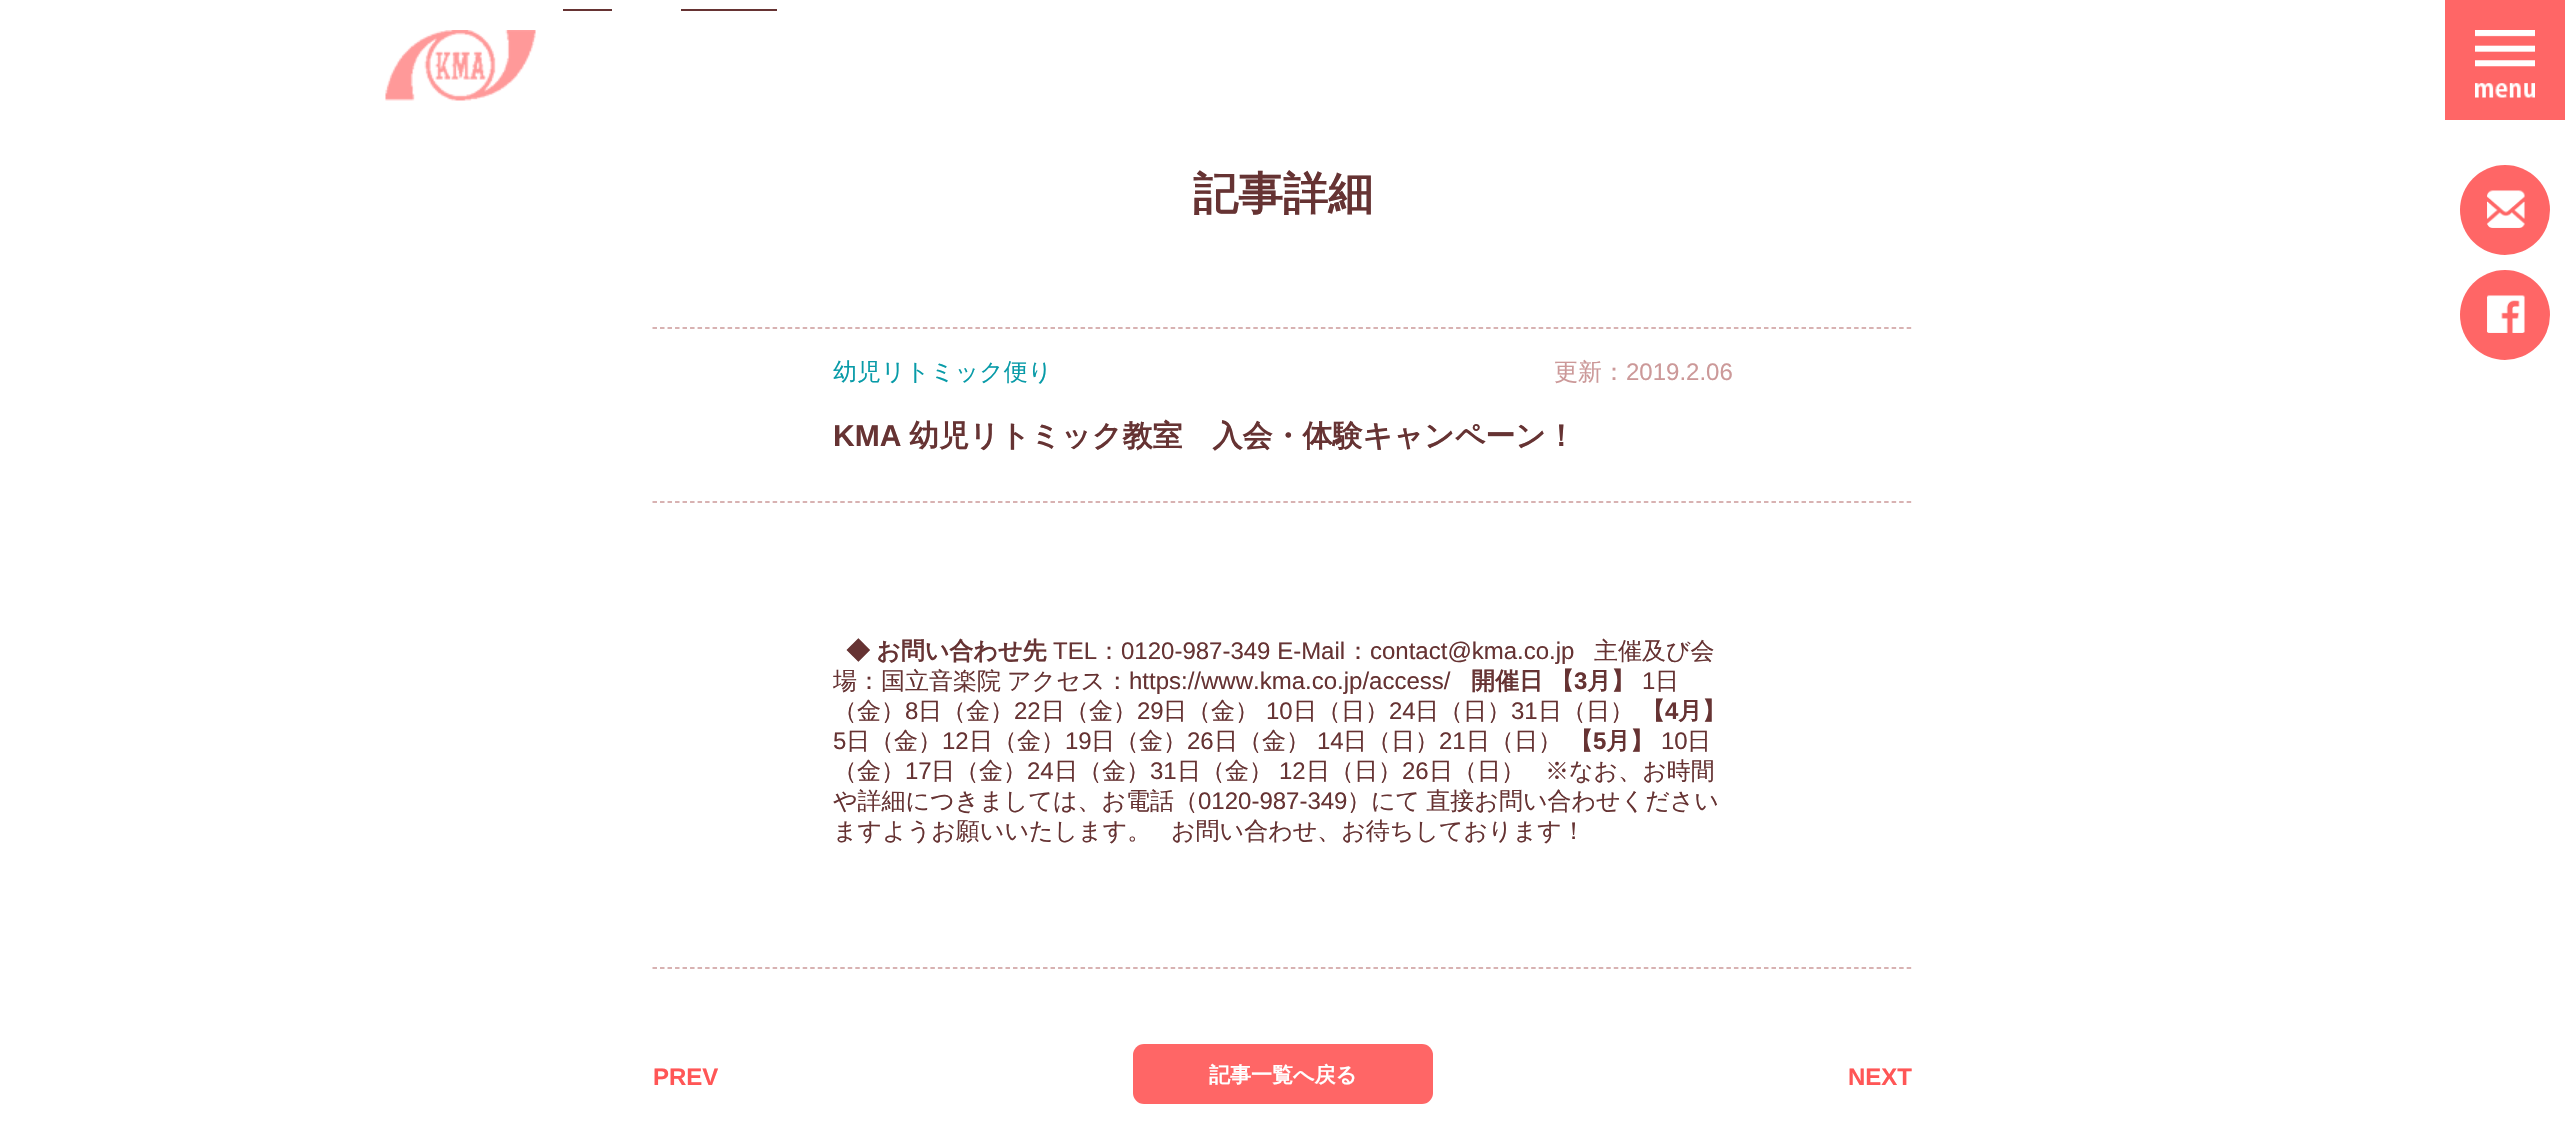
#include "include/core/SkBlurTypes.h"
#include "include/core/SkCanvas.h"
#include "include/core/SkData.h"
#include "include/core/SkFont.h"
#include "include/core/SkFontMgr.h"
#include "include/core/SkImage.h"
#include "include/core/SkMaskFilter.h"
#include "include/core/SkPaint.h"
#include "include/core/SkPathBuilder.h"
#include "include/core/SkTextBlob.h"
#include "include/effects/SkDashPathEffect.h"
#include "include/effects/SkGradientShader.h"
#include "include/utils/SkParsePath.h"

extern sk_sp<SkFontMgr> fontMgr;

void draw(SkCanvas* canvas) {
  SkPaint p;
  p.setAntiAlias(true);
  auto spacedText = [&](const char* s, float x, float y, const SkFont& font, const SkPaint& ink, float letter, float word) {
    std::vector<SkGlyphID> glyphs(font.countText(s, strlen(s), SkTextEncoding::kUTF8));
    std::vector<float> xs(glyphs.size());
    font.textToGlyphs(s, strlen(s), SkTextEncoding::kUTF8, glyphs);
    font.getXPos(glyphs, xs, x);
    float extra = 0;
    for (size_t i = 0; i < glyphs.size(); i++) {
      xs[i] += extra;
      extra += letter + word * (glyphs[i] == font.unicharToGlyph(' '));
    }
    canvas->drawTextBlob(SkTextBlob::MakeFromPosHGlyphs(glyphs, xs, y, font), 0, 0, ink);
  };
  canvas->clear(SK_ColorWHITE);
  p.setColor(SkColorSetRGB(102, 51, 51));
  canvas->drawRect(SkRect::MakeLTRB(563, 9, 612, 11), p);
  canvas->drawRect(SkRect::MakeLTRB(681, 9, 777, 11), p);
  p.setColor(SkColorSetRGB(255, 102, 102));
  canvas->drawRect(SkRect::MakeLTRB(2445, 0, 2565, 120), p);
  canvas->drawImageRect(SkImages::DeferredFromEncodedData(SkData::MakeFromFileName("images/1.png")), SkRect::MakeLTRB(2475, 30, 2535, 98), SkSamplingOptions());
  canvas->drawCircle(2505, 210, 45, p);
  canvas->drawImageRect(SkImages::DeferredFromEncodedData(SkData::MakeFromFileName("images/2.png")), SkRect::MakeLTRB(2487, 190, 2525, 228), SkSamplingOptions());
  canvas->drawCircle(2505, 315, 45, p);
  canvas->drawImageRect(SkImages::DeferredFromEncodedData(SkData::MakeFromFileName("images/3.png")), SkRect::MakeLTRB(2487, 295, 2525, 333), SkSamplingOptions());
  canvas->drawImageRect(SkImages::DeferredFromEncodedData(SkData::MakeFromFileName("images/4.png")), SkRect::MakeLTRB(385, 30, 536, 101), SkSamplingOptions());
  p.setStyle(SkPaint::kStroke_Style);
  p.setStrokeWidth(1.5f);
  p.setColor(SkColorSetRGB(204, 153, 153));
  p.setPathEffect(SkDashPathEffect::Make({{4.5f, 3.01f}}, 0));
  canvas->drawPath(SkPathBuilder().moveTo(652.5f, 968).lineTo(1912.5f, 968).detach(), p);
  p.setPathEffect(nullptr);
  p.setPathEffect(SkDashPathEffect::Make({{4.5f, 3.01f}}, 0));
  canvas->drawPath(SkPathBuilder().moveTo(652.5f, 328).lineTo(1912.5f, 328).detach(), p);
  p.setPathEffect(nullptr);
  p.setPathEffect(SkDashPathEffect::Make({{4.5f, 3.01f}}, 0));
  canvas->drawPath(SkPathBuilder().moveTo(652.5f, 502).lineTo(1912.5f, 502).detach(), p);
  p.setPathEffect(nullptr);
  p.setStyle(SkPaint::kFill_Style);
  p.setColor(SkColorSetRGB(255, 102, 102));
  canvas->drawRoundRect(SkRect::MakeLTRB(1133, 1044, 1433, 1104), 11, 11, p);
  SkFont font1(fontMgr->matchFamilyStyle("WenQuanYi Zen Hei", SkFontStyle::Bold()), 45);
  font1.setSubpixel(true);
  p.setColor(SkColorSetRGB(102, 51, 51));
  canvas->drawString("記事詳細", 1193, 209, font1, p);
  SkFont font2(fontMgr->matchFamilyStyle("WenQuanYi Zen Hei", SkFontStyle(500, SkFontStyle::kNormal_Width, SkFontStyle::kUpright_Slant)), 24);
  font2.setSubpixel(true);
  p.setColor(SkColorSetRGB(8, 155, 168));
  canvas->drawString("幼児リトミック便り", 833, 380, font2, p);
  p.setColor(SkColorSetRGB(204, 153, 153));
  canvas->drawString("更新：", 1554, 380, font2, p);
  SkFont font3(fontMgr->matchFamilyStyle("Liberation Sans", SkFontStyle::Normal()), 24);
  font3.setSubpixel(true);
  canvas->drawString("2019.2.06", 1626, 380, font3, p);
  SkFont font4(fontMgr->matchFamilyStyle("Liberation Sans", SkFontStyle::Bold()), 30);
  font4.setSubpixel(true);
  p.setColor(SkColorSetRGB(102, 51, 51));
  canvas->drawString("KMA", 833, 446, font4, p);
  SkFont font5(fontMgr->matchFamilyStyle("WenQuanYi Zen Hei", SkFontStyle::Bold()), 30);
  font5.setSubpixel(true);
  canvas->drawString("幼児リトミック教室　入会・体験キャンペーン！", 909, 446, font5, p);
  SkFont font6(fontMgr->matchFamilyStyle("WenQuanYi Zen Hei", SkFontStyle::Bold()), 24);
  font6.setSubpixel(true);
  spacedText("◆ お問い合わせ先", 846, 659, font6, p, 0, -1);
  canvas->drawString("TEL", 1053, 659, font3, p);
  canvas->drawString("：", 1097, 659, font2, p);
  canvas->drawString("0120-987-349 E-Mail", 1121, 659, font3, p);
  canvas->drawString("：", 1346, 659, font2, p);
  canvas->drawString("contact@kma.co.jp", 1370, 659, font3, p);
  canvas->drawString("主催及び会", 1594, 659, font2, p);
  canvas->drawString("場：国立音楽院", 833, 689, font2, p);
  canvas->drawString("アクセス：", 1007, 689, font2, p);
  canvas->drawString("https://www.kma.co.jp/access/", 1129, 689, font3, p);
  canvas->drawString("開催日", 1471, 689, font6, p);
  canvas->drawString("【", 1550, 689, font6, p);
  SkFont font7(fontMgr->matchFamilyStyle("Liberation Sans", SkFontStyle::Bold()), 24);
  font7.setSubpixel(true);
  canvas->drawString("3", 1574, 689, font7, p);
  canvas->drawString("月】", 1587, 689, font6, p);
  canvas->drawString("1", 1642, 689, font3, p);
  canvas->drawString("日", 1655, 689, font2, p);
  canvas->drawString("（金）", 833, 719, font2, p);
  canvas->drawString("8", 905, 719, font3, p);
  canvas->drawString("日（金）", 918, 719, font2, p);
  canvas->drawString("22", 1014, 719, font3, p);
  canvas->drawString("日（金）", 1041, 719, font2, p);
  canvas->drawString("29", 1137, 719, font3, p);
  canvas->drawString("日（金）", 1163, 719, font2, p);
  canvas->drawString("10", 1266, 719, font3, p);
  canvas->drawString("日（日）", 1293, 719, font2, p);
  canvas->drawString("24", 1389, 719, font3, p);
  canvas->drawString("日（日）", 1415, 719, font2, p);
  canvas->drawString("31", 1511, 719, font3, p);
  canvas->drawString("日（日）", 1538, 719, font2, p);
  canvas->drawString("【", 1641, 719, font6, p);
  canvas->drawString("4", 1665, 719, font7, p);
  canvas->drawString("月】", 1678, 719, font6, p);
  canvas->drawString("5", 833, 749, font3, p);
  canvas->drawString("日（金）", 846, 749, font2, p);
  canvas->drawString("12", 942, 749, font3, p);
  canvas->drawString("日（金）", 969, 749, font2, p);
  canvas->drawString("19", 1065, 749, font3, p);
  canvas->drawString("日（金）", 1091, 749, font2, p);
  canvas->drawString("26", 1187, 749, font3, p);
  canvas->drawString("日（金）", 1214, 749, font2, p);
  canvas->drawString("14", 1317, 749, font3, p);
  canvas->drawString("日（日）", 1343, 749, font2, p);
  canvas->drawString("21", 1439, 749, font3, p);
  canvas->drawString("日（日）", 1466, 749, font2, p);
  canvas->drawString("【", 1569, 749, font6, p);
  canvas->drawString("5", 1593, 749, font7, p);
  canvas->drawString("月】", 1606, 749, font6, p);
  canvas->drawString("10", 1661, 749, font3, p);
  canvas->drawString("日", 1687, 749, font2, p);
  canvas->drawString("（金）", 833, 779, font2, p);
  canvas->drawString("17", 905, 779, font3, p);
  canvas->drawString("日（金）", 931, 779, font2, p);
  canvas->drawString("24", 1027, 779, font3, p);
  canvas->drawString("日（金）", 1054, 779, font2, p);
  canvas->drawString("31", 1150, 779, font3, p);
  canvas->drawString("日（金）", 1177, 779, font2, p);
  canvas->drawString("12", 1279, 779, font3, p);
  canvas->drawString("日（日）", 1306, 779, font2, p);
  canvas->drawString("26", 1402, 779, font3, p);
  canvas->drawString("日（日）", 1429, 779, font2, p);
  canvas->drawString("※なお、お時間", 1545, 779, font2, p);
  canvas->drawString("や詳細につきましては、お電話（", 833, 809, font2, p);
  canvas->drawString("0120-987-349", 1198, 809, font3, p);
  spacedText("）にて 直接お問い合わせください", 1347, 809, font2, p, 0, -1);
  canvas->drawString("ますようお願いいたします。", 833, 839, font2, p);
  canvas->drawString("お問い合わせ、お待ちしております！", 1171, 839, font2, p);
  p.setColor(SkColorSetRGB(255, 86, 86));
  canvas->drawString("PREV", 653, 1085, font7, p);
  SkFont font8(fontMgr->matchFamilyStyle("WenQuanYi Zen Hei", SkFontStyle::Bold()), 21);
  font8.setSubpixel(true);
  p.setColor(SK_ColorWHITE);
  canvas->drawString("記事一覧へ戻る", 1209, 1082, font8, p);
  p.setColor(SkColorSetRGB(255, 86, 86));
  canvas->drawString("NEXT", 1848, 1085, font7, p);
}
